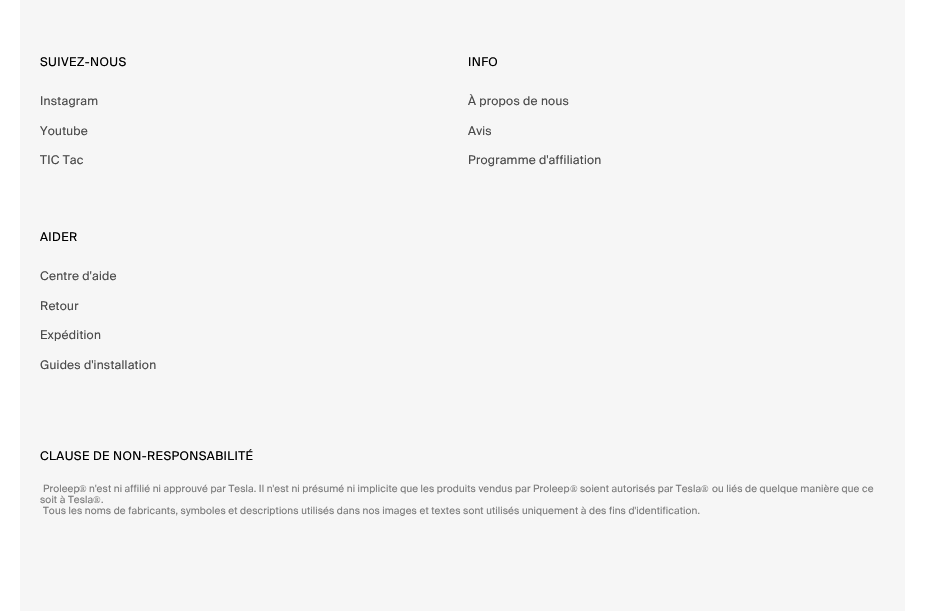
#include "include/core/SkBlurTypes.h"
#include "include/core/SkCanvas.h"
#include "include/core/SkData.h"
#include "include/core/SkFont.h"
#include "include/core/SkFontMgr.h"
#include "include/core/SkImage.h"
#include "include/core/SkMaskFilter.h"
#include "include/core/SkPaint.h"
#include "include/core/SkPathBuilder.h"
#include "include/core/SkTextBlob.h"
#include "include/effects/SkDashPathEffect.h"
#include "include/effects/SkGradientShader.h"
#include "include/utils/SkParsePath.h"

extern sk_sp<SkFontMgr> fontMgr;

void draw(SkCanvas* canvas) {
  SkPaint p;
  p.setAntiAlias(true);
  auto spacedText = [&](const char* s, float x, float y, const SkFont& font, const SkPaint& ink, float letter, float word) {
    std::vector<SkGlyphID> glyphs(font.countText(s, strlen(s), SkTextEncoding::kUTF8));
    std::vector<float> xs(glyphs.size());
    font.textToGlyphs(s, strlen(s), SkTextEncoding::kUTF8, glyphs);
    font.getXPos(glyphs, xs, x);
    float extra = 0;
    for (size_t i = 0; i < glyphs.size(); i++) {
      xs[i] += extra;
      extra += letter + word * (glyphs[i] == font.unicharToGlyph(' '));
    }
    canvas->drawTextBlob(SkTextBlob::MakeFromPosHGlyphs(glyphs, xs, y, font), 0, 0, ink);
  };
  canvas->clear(SK_ColorWHITE);
  p.setColor(SkColorSetRGB(246, 246, 246));
  canvas->drawRect(SkRect::MakeLTRB(20, 0, 905, 611), p);
  SkFont font1(fontMgr->matchFamilyStyle("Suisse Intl", SkFontStyle::Normal()), 12);
  font1.setSubpixel(true);
  p.setColor(SK_ColorBLACK);
  spacedText("SUIVEZ-NOUS", 40, 66, font1, p, 0.4f, 0);
  p.setColor(SkColorSetRGB(74, 74, 74));
  spacedText("Instagram", 40, 105, font1, p, 0.25f, 0);
  spacedText("Youtube", 40, 135, font1, p, 0.25f, 0);
  spacedText("TIC Tac", 40, 164, font1, p, 0.25f, 0);
  p.setColor(SK_ColorBLACK);
  spacedText("INFO", 468, 66, font1, p, 0.4f, 0);
  p.setColor(SkColorSetRGB(74, 74, 74));
  spacedText("À propos de nous", 468, 105, font1, p, 0.25f, 0);
  spacedText("Avis", 468, 135, font1, p, 0.25f, 0);
  spacedText("Programme d'affiliation", 468, 164, font1, p, 0.25f, 0);
  p.setColor(SK_ColorBLACK);
  spacedText("AIDER", 40, 241, font1, p, 0.4f, 0);
  p.setColor(SkColorSetRGB(74, 74, 74));
  spacedText("Centre d'aide", 40, 280, font1, p, 0.25f, 0);
  spacedText("Retour", 40, 310, font1, p, 0.25f, 0);
  spacedText("Expédition", 40, 339, font1, p, 0.25f, 0);
  spacedText("Guides d'installation", 40, 369, font1, p, 0.25f, 0);
  p.setColor(SK_ColorBLACK);
  spacedText("CLAUSE DE NON-RESPONSABILITÉ", 40, 460, font1, p, 0.4f, 0);
  SkFont font2(fontMgr->matchFamilyStyle("Suisse Intl", SkFontStyle::Normal()), 10);
  font2.setSubpixel(true);
  p.setColor(SkColorSetRGB(123, 123, 123));
  spacedText("Proleep", 43, 492, font2, p, 0.12f, 0);
  SkFont font3(fontMgr->matchFamilyStyle("Liberation Serif", SkFontStyle::Normal()), 10);
  font3.setSubpixel(true);
  spacedText("®", 79, 492, font3, p, 0.12f, 0);
  spacedText("n'est ni affilié ni approuvé par Tesla. Il n'est ni présumé ni implicite que les produits vendus par Proleep", 89, 492, font2, p, 0.12f, 0);
  spacedText("®", 570, 492, font3, p, 0.12f, 0);
  spacedText("soient autorisés par Tesla", 580, 492, font2, p, 0.12f, 0);
  spacedText("®", 701, 492, font3, p, 0.12f, 0);
  spacedText("ou liés de quelque manière que ce", 712, 492, font2, p, 0.12f, 0);
  spacedText("soit à Tesla", 40, 503, font2, p, 0.12f, 0);
  spacedText("®", 93, 503, font3, p, 0.12f, 0);
  spacedText(".", 101, 503, font2, p, 0.12f, 0);
  spacedText("Tous les noms de fabricants, symboles et descriptions utilisés dans nos images et textes sont utilisés uniquement à des fins d'identification.", 43, 514, font2, p, 0.12f, 0);
}
